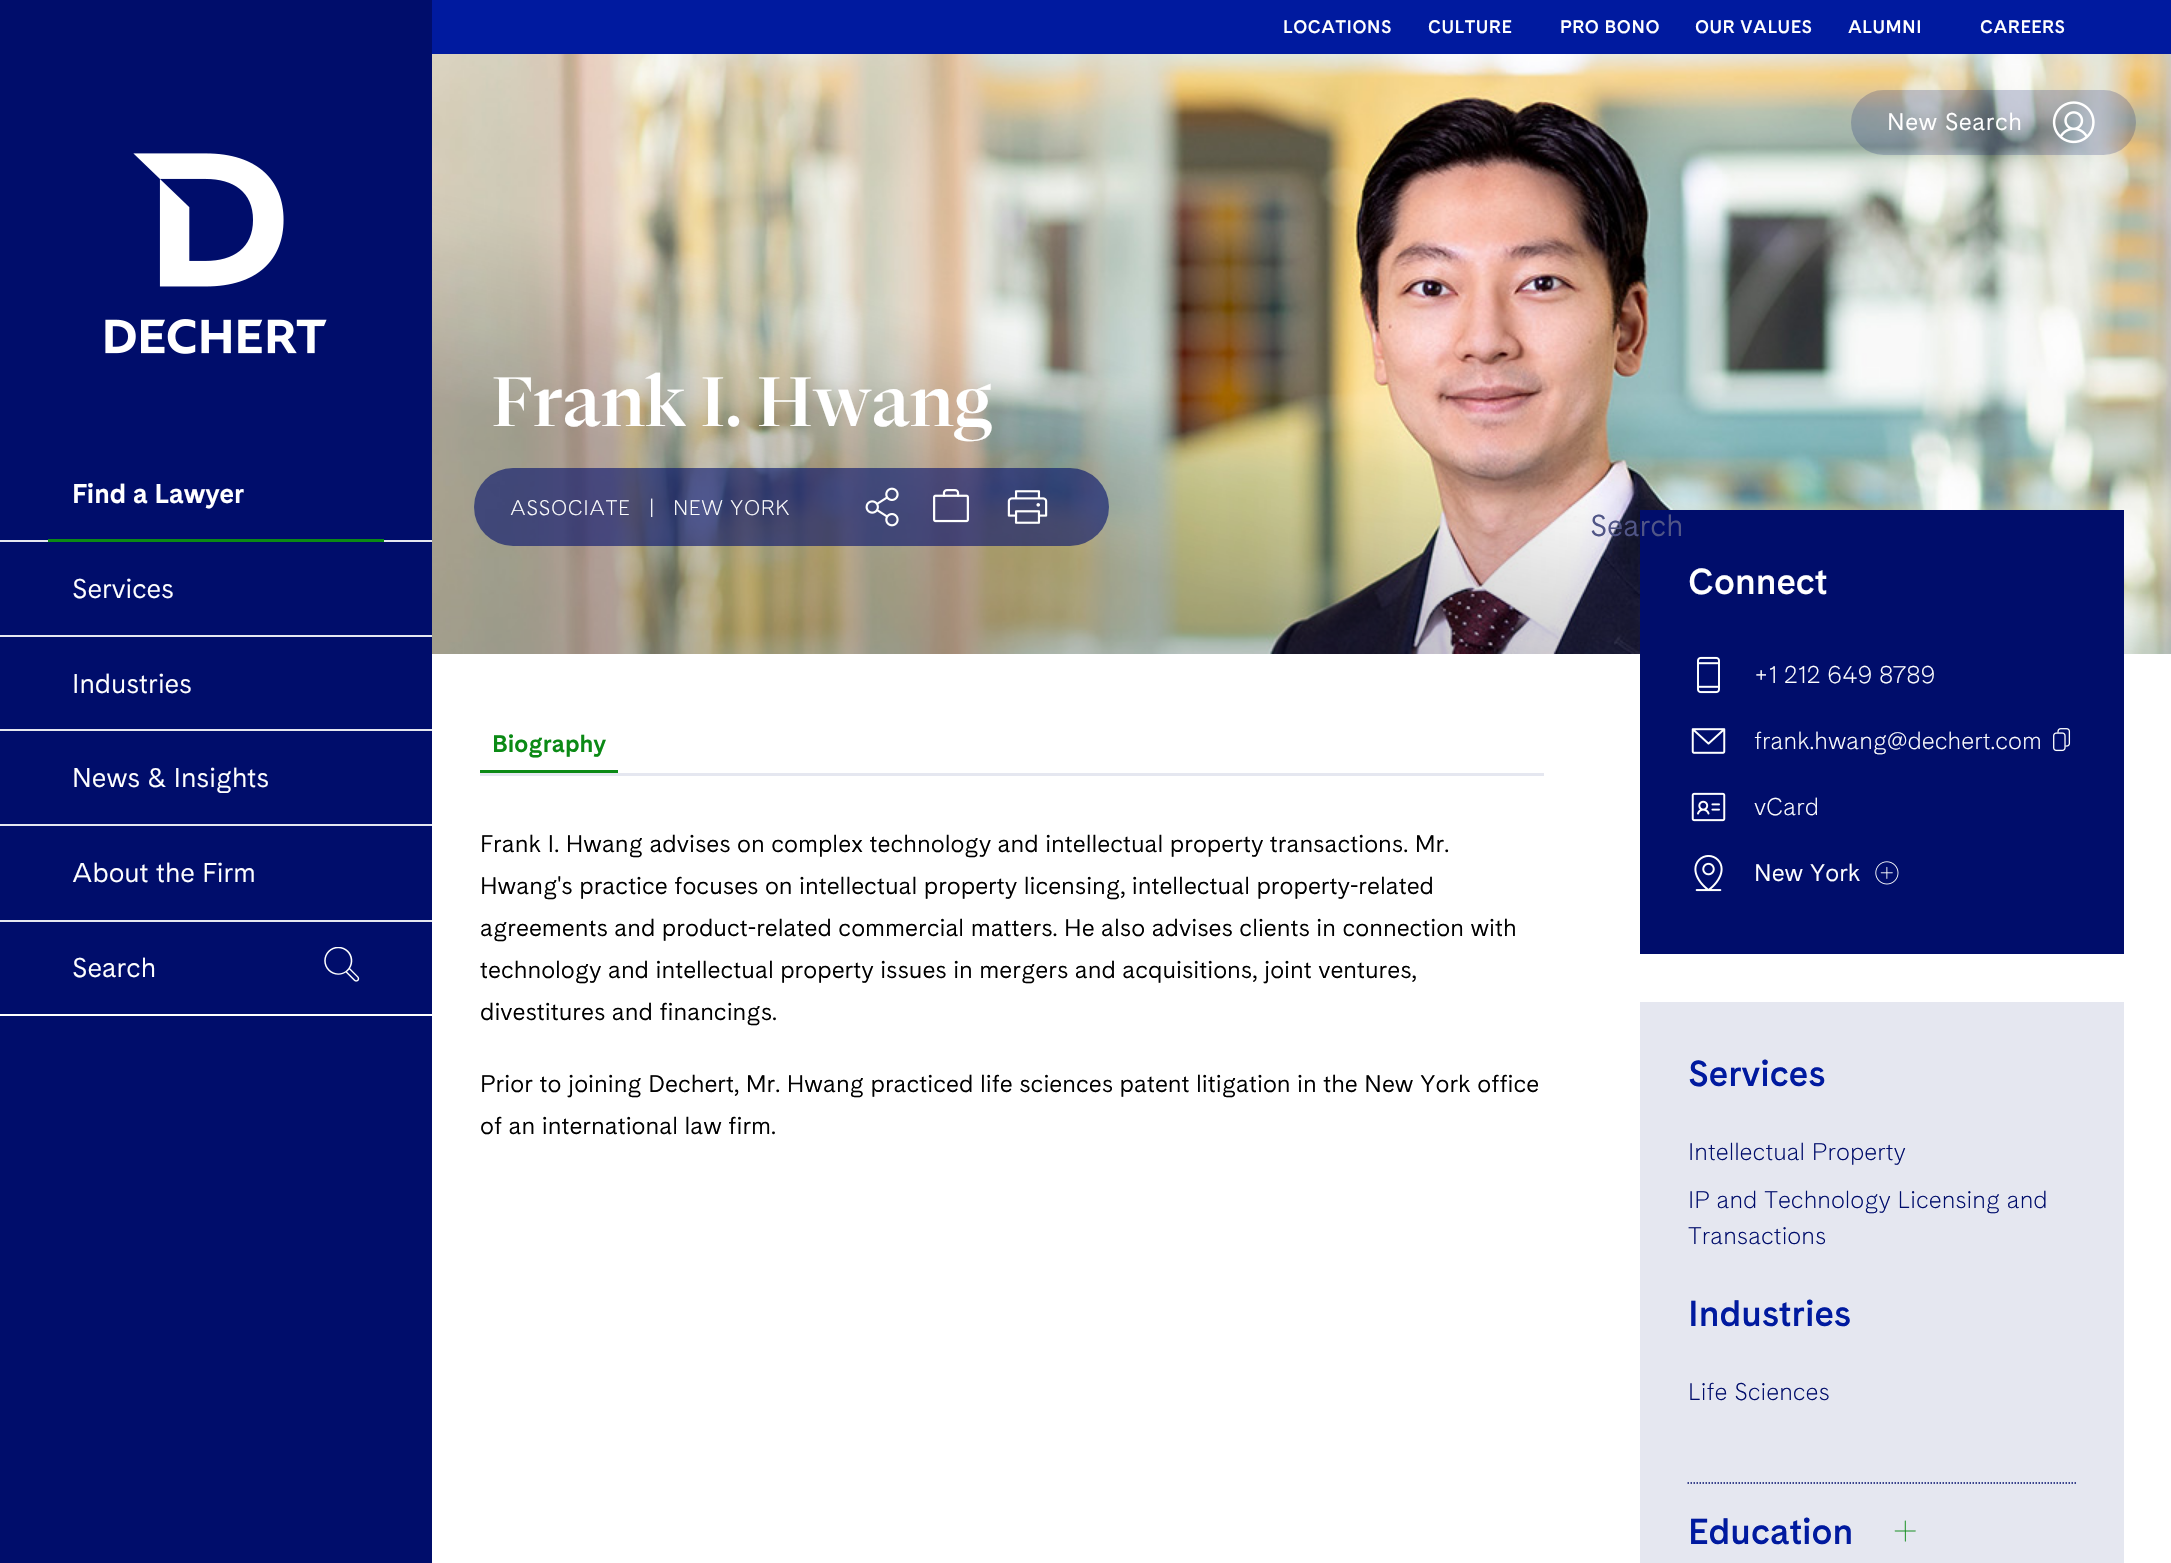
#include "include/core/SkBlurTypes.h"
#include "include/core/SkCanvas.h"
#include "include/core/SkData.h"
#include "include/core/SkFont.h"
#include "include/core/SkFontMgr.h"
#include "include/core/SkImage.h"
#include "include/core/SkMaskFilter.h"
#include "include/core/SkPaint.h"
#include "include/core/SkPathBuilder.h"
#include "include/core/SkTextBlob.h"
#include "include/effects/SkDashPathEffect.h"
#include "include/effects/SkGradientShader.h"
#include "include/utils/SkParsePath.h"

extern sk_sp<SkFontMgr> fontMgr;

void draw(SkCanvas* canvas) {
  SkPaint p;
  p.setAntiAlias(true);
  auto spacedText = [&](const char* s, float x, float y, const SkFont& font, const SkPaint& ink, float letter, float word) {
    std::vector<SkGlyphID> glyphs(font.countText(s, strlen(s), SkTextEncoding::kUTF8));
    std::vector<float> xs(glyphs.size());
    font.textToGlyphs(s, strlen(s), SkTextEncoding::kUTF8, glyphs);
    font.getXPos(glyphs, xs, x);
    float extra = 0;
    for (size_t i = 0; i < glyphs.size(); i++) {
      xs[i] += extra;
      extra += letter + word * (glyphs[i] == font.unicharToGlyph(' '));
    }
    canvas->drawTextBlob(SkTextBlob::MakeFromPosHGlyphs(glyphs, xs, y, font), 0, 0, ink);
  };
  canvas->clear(SK_ColorWHITE);
  p.setColor(SkColorSetRGB(0, 13, 107));
  canvas->drawRect(SkRect::MakeLTRB(0, 0, 432, 1563), p);
  canvas->drawImageRect(SkImages::DeferredFromEncodedData(SkData::MakeFromFileName("images/1.png")), SkRect::MakeLTRB(105, 153, 327, 354), SkSamplingOptions());
  p.setColor(SkColorSetRGB(229, 231, 240));
  canvas->drawRect(SkRect::MakeLTRB(0, 540, 432, 542), p);
  p.setColor(SkColorSetRGB(11, 138, 21));
  canvas->drawRect(SkRect::MakeLTRB(48, 539, 384, 542), p);
  p.setColor(SkColorSetRGB(229, 231, 240));
  canvas->drawRect(SkRect::MakeLTRB(0, 635, 432, 637), p);
  canvas->drawRect(SkRect::MakeLTRB(0, 729, 432, 731), p);
  canvas->drawRect(SkRect::MakeLTRB(0, 824, 432, 826), p);
  canvas->drawRect(SkRect::MakeLTRB(0, 920, 432, 922), p);
  canvas->drawImageRect(SkImages::DeferredFromEncodedData(SkData::MakeFromFileName("images/2.png")), SkRect::MakeLTRB(324, 947, 360, 982), SkSamplingOptions());
  p.setColor(SK_ColorWHITE);
  canvas->drawRect(SkRect::MakeLTRB(0, 1014, 432, 1016), p);
  p.setColor(SkColorSetRGB(0, 26, 159));
  canvas->drawRect(SkRect::MakeLTRB(432, 0, 2171, 54), p);
  canvas->drawImageRect(SkImages::DeferredFromEncodedData(SkData::MakeFromFileName("images/3.png")), SkRect::MakeLTRB(432, 54, 2171, 654), SkSamplingOptions());
  p.setColor(SkColorSetARGB(51, 0, 13, 107));
  canvas->drawRoundRect(SkRect::MakeLTRB(1851, 90, 2136, 155), 32.5f, 32.5f, p);
  canvas->drawImageRect(SkImages::DeferredFromEncodedData(SkData::MakeFromFileName("images/4.png")), SkRect::MakeLTRB(2052, 101, 2095, 144), SkSamplingOptions());
  p.setColor(SkColorSetARGB(153, 0, 13, 107));
  canvas->drawRoundRect(SkRect::MakeLTRB(474, 468, 1109, 546), 39, 39, p);
  canvas->drawImageRect(SkImages::DeferredFromEncodedData(SkData::MakeFromFileName("images/5.png")), SkRect::MakeLTRB(865, 487, 899, 527), SkSamplingOptions());
  canvas->drawImageRect(SkImages::DeferredFromEncodedData(SkData::MakeFromFileName("images/6.png")), SkRect::MakeLTRB(933, 489, 969, 523), SkSamplingOptions());
  canvas->drawImageRect(SkImages::DeferredFromEncodedData(SkData::MakeFromFileName("images/7.png")), SkRect::MakeLTRB(1007, 490, 1048, 524), SkSamplingOptions());
  p.setColor(SkColorSetRGB(229, 231, 240));
  canvas->drawRect(SkRect::MakeLTRB(480, 773, 1544, 776), p);
  p.setColor(SkColorSetRGB(11, 138, 21));
  canvas->drawRect(SkRect::MakeLTRB(480, 770, 618, 773), p);
  p.setColor(SkColorSetRGB(0, 13, 107));
  canvas->drawRect(SkRect::MakeLTRB(1640, 510, 2124, 954), p);
  canvas->drawImageRect(SkImages::DeferredFromEncodedData(SkData::MakeFromFileName("images/8.png")), SkRect::MakeLTRB(1697, 656, 1720, 694), SkSamplingOptions());
  canvas->drawImageRect(SkImages::DeferredFromEncodedData(SkData::MakeFromFileName("images/9.png")), SkRect::MakeLTRB(1691, 728, 1726, 754), SkSamplingOptions());
  canvas->drawImageRect(SkImages::DeferredFromEncodedData(SkData::MakeFromFileName("images/10.png")), SkRect::MakeLTRB(2053, 728, 2071, 752), SkSamplingOptions());
  canvas->drawImageRect(SkImages::DeferredFromEncodedData(SkData::MakeFromFileName("images/11.png")), SkRect::MakeLTRB(1691, 792, 1726, 822), SkSamplingOptions());
  canvas->drawImageRect(SkImages::DeferredFromEncodedData(SkData::MakeFromFileName("images/12.png")), SkRect::MakeLTRB(1694, 855, 1723, 892), SkSamplingOptions());
  canvas->drawImageRect(SkImages::DeferredFromEncodedData(SkData::MakeFromFileName("images/13.png")), SkRect::MakeLTRB(1875, 861, 1899, 885), SkSamplingOptions());
  p.setColor(SkColorSetRGB(229, 231, 240));
  canvas->drawRect(SkRect::MakeLTRB(1640, 1002, 2124, 1563), p);
  p.setStyle(SkPaint::kStroke_Style);
  p.setStrokeWidth(1.5f);
  p.setColor(SkColorSetRGB(0, 13, 107));
  p.setPathEffect(SkDashPathEffect::Make({{1.5f, 1.5f}}, 0));
  canvas->drawPath(SkPathBuilder().moveTo(1687.5f, 1483).lineTo(2076, 1483).detach(), p);
  p.setPathEffect(nullptr);
  canvas->drawImageRect(SkImages::DeferredFromEncodedData(SkData::MakeFromFileName("images/14.png")), SkRect::MakeLTRB(1894, 1520, 1916, 1542), SkSamplingOptions());
  SkFont font1(fontMgr->matchFamilyStyle("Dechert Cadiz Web", SkFontStyle::Bold()), 27);
  font1.setSubpixel(true);
  p.setStyle(SkPaint::kFill_Style);
  p.setColor(SK_ColorWHITE);
  canvas->drawString("Find a Lawyer", 72, 503, font1, p);
  SkFont font2(fontMgr->matchFamilyStyle("Dechert Cadiz Web", SkFontStyle::Normal()), 27);
  font2.setSubpixel(true);
  canvas->drawString("Services", 72, 598, font2, p);
  canvas->drawString("Industries", 72, 693, font2, p);
  canvas->drawString("News & Insights", 72, 787, font2, p);
  canvas->drawString("About the Firm", 72, 882, font2, p);
  canvas->drawString("Search", 72, 977, font2, p);
  SkFont font3(fontMgr->matchFamilyStyle("Dechert Cadiz Web", SkFontStyle(600, SkFontStyle::kNormal_Width, SkFontStyle::kUpright_Slant)), 18);
  font3.setSubpixel(true);
  spacedText("LOCATIONS", 1283, 33, font3, p, 0.5f, 0);
  spacedText("CULTURE", 1428, 33, font3, p, 0.5f, 0);
  spacedText("PRO BONO", 1560, 33, font3, p, 0.5f, 0);
  spacedText("OUR VALUES", 1695, 33, font3, p, 0.5f, 0);
  spacedText("ALUMNI", 1848, 33, font3, p, 0.5f, 0);
  spacedText("CAREERS", 1980, 33, font3, p, 0.5f, 0);
  SkFont font4(fontMgr->matchFamilyStyle("Dechert Cadiz Web", SkFontStyle::Normal()), 24);
  font4.setSubpixel(true);
  spacedText("New Search", 1887, 130, font4, p, 0.5f, 0);
  SkFont font5(fontMgr->matchFamilyStyle("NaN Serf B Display", SkFontStyle(600, SkFontStyle::kNormal_Width, SkFontStyle::kUpright_Slant)), 72);
  font5.setSubpixel(true);
  spacedText("Frank I. Hwang", 492, 426, font5, p, 0.75f, 0);
  SkFont font6(fontMgr->matchFamilyStyle("Dechert Cadiz Web", SkFontStyle(300, SkFontStyle::kNormal_Width, SkFontStyle::kUpright_Slant)), 21);
  font6.setSubpixel(true);
  spacedText("ASSOCIATE", 510, 515, font6, p, 0.5f, 0);
  spacedText("|", 649, 515, font6, p, 0.5f, 0);
  spacedText("NEW YORK", 673, 515, font6, p, 0.5f, 0);
  SkFont font7(fontMgr->matchFamilyStyle("Dechert Cadiz Web", SkFontStyle::Bold()), 24);
  font7.setSubpixel(true);
  p.setColor(SkColorSetRGB(11, 138, 21));
  canvas->drawString("Biography", 492, 752, font7, p);
  p.setColor(SK_ColorBLACK);
  canvas->drawString("Frank I. Hwang advises on complex technology and intellectual property transactions. Mr.", 480, 852, font4, p);
  canvas->drawString("Hwang's practice focuses on intellectual property licensing, intellectual property-related", 480, 894, font4, p);
  canvas->drawString("agreements and product-related commercial matters. He also advises clients in connection with", 480, 936, font4, p);
  canvas->drawString("technology and intellectual property issues in mergers and acquisitions, joint ventures,", 480, 978, font4, p);
  canvas->drawString("divestitures and financings.", 480, 1020, font4, p);
  canvas->drawString("Prior to joining Dechert, Mr. Hwang practiced life sciences patent litigation in the New York office", 480, 1092, font4, p);
  canvas->drawString("of an international law firm.", 480, 1134, font4, p);
  SkFont font8(fontMgr->matchFamilyStyle("Dechert Cadiz Web", SkFontStyle(600, SkFontStyle::kNormal_Width, SkFontStyle::kUpright_Slant)), 36);
  font8.setSubpixel(true);
  p.setColor(SK_ColorWHITE);
  canvas->drawString("Connect", 1688, 594, font8, p);
  SkFont font9(fontMgr->matchFamilyStyle("Dechert Cadiz Web", SkFontStyle(300, SkFontStyle::kNormal_Width, SkFontStyle::kUpright_Slant)), 24);
  font9.setSubpixel(true);
  canvas->drawString("+1 212 649 8789", 1754, 683, font9, p);
  canvas->drawString("frank.hwang@dechert.com", 1754, 749, font9, p);
  canvas->drawString("vCard", 1754, 815, font9, p);
  canvas->drawString("New York", 1754, 881, font4, p);
  p.setColor(SkColorSetRGB(0, 26, 159));
  canvas->drawString("Services", 1688, 1086, font8, p);
  p.setColor(SkColorSetRGB(0, 13, 107));
  canvas->drawString("Intellectual Property", 1688, 1160, font9, p);
  canvas->drawString("IP and Technology Licensing and", 1688, 1208, font9, p);
  canvas->drawString("Transactions", 1688, 1244, font9, p);
  p.setColor(SkColorSetRGB(0, 26, 159));
  canvas->drawString("Industries", 1688, 1326, font8, p);
  p.setColor(SkColorSetRGB(0, 13, 107));
  canvas->drawString("Life Sciences", 1688, 1400, font9, p);
  p.setColor(SkColorSetRGB(0, 26, 159));
  canvas->drawString("Education", 1688, 1544, font8, p);
  SkFont font10(fontMgr->matchFamilyStyle("Dechert Cadiz Web", SkFontStyle::Normal()), 30);
  font10.setSubpixel(true);
  p.setColor(SkColorSetRGB(80, 85, 134));
  canvas->drawString("Search", 1590, 536, font10, p);
}
